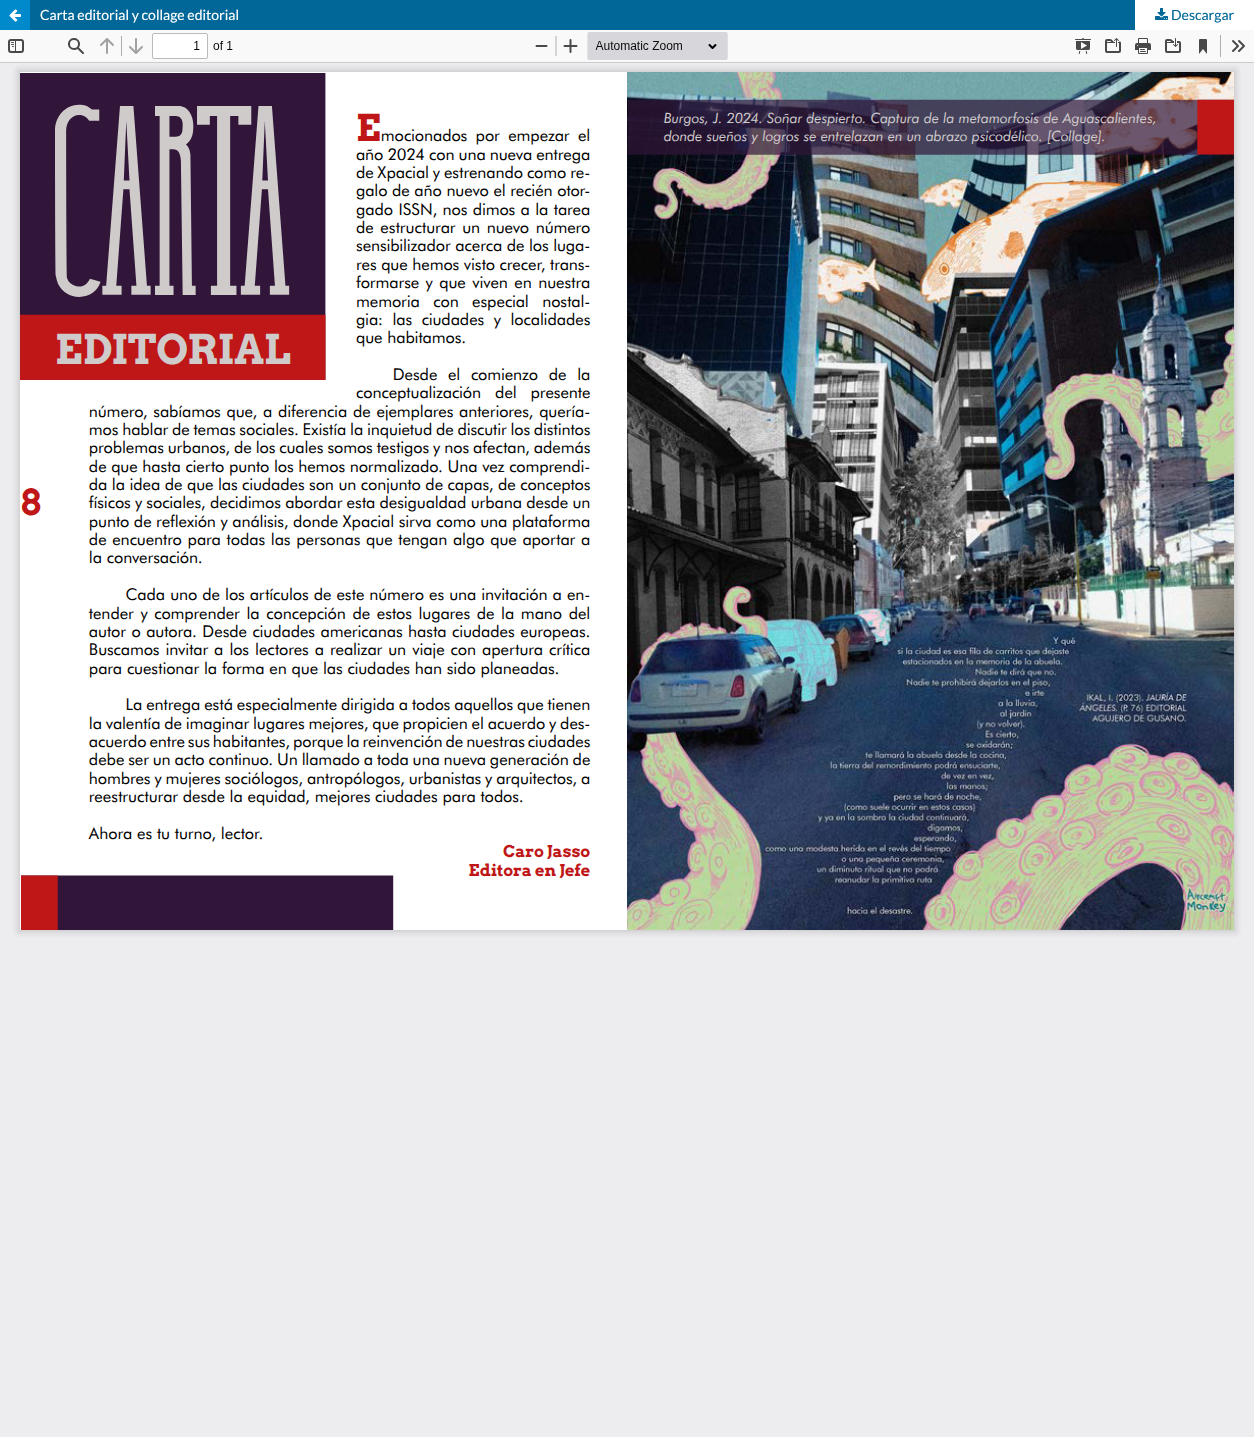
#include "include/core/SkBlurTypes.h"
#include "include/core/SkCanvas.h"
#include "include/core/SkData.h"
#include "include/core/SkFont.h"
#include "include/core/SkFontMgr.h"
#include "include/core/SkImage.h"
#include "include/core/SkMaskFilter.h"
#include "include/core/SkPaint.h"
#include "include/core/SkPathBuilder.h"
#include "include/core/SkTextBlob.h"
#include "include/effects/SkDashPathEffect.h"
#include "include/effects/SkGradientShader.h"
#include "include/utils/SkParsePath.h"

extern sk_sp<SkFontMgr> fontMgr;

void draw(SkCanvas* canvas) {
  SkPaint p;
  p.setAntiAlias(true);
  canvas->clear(SK_ColorWHITE);
  p.setColor(SkColorSetRGB(0, 103, 152));
  canvas->drawRect(SkRect::MakeLTRB(30, 0, 1135, 30), p);
  p.setColor(SkColorSetRGB(0, 138, 203));
  canvas->drawRect(SkRect::MakeLTRB(0, 0, 30, 30), p);
  canvas->drawImageRect(SkImages::DeferredFromEncodedData(SkData::MakeFromFileName("images/1.png")), SkRect::MakeLTRB(9, 9, 21, 22), SkSamplingOptions());
  canvas->drawImageRect(SkImages::DeferredFromEncodedData(SkData::MakeFromFileName("images/2.png")), SkRect::MakeLTRB(1155, 8, 1168, 20), SkSamplingOptions());
  canvas->drawImageRect(SkImages::DeferredFromEncodedData(SkData::MakeFromFileName("images/3.png")), SkRect::MakeLTRB(0, 30, 1254, 1437), SkSamplingOptions());
  SkFont font1(fontMgr->matchFamilyStyle("Lato", SkFontStyle::Normal()), 14);
  font1.setSubpixel(true);
  p.setColor(SK_ColorWHITE);
  canvas->drawString("Carta editorial y collage editorial", 40, 20, font1, p);
  p.setColor(SkColorSetRGB(0, 103, 152));
  canvas->drawString("Descargar", 1171, 20, font1, p);
}
